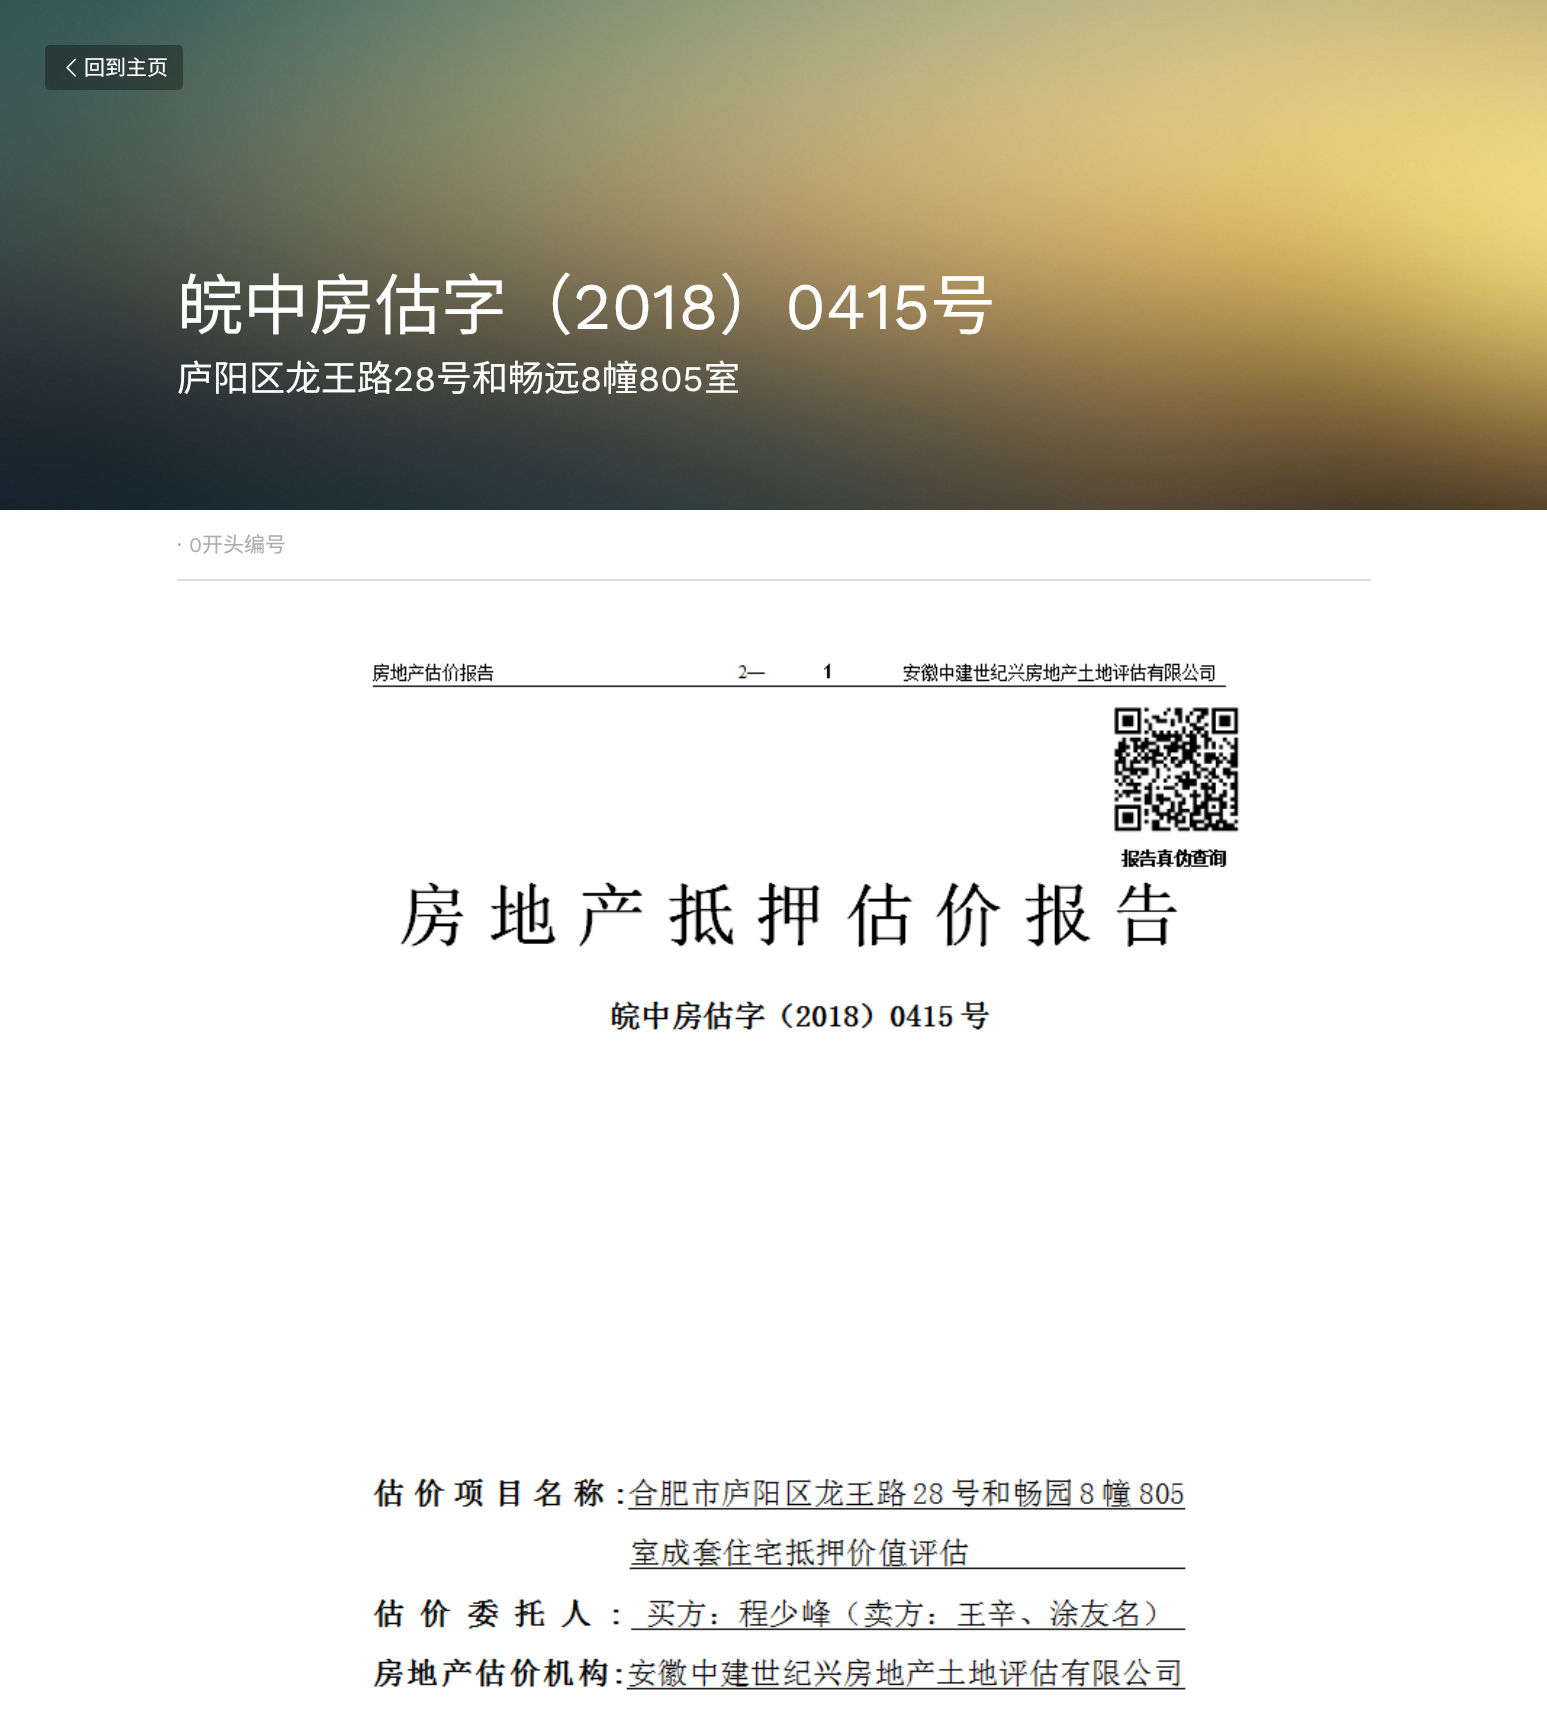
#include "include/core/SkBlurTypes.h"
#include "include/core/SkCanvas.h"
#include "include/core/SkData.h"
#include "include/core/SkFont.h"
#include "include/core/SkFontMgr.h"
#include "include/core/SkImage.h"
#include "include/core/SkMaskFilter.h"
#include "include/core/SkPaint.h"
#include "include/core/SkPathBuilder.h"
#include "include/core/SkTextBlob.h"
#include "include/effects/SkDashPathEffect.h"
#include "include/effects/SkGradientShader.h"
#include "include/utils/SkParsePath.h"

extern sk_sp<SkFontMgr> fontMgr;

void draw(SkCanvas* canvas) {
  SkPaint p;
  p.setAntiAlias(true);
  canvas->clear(SK_ColorWHITE);
  canvas->drawImageRect(SkImages::DeferredFromEncodedData(SkData::MakeFromFileName("images/1.png")), SkRect::MakeLTRB(0, 0, 1547, 510), SkSamplingOptions());
  p.setColor(SkColorSetARGB(89, 0, 0, 0));
  canvas->drawRoundRect(SkRect::MakeLTRB(45, 45, 183, 90), 5, 5, p);
  canvas->drawImageRect(SkImages::DeferredFromEncodedData(SkData::MakeFromFileName("images/2.png")), SkRect::MakeLTRB(66, 58, 76, 77), SkSamplingOptions());
  p.setColor(SkColorSetRGB(221, 221, 221));
  canvas->drawRect(SkRect::MakeLTRB(177, 579, 1371, 581), p);
  canvas->drawImageRect(SkImages::DeferredFromEncodedData(SkData::MakeFromFileName("images/3.png")), SkRect::MakeLTRB(372, 663, 1240, 1690), SkSamplingOptions());
  SkFont font1(fontMgr->matchFamilyStyle("Noto Sans CJK SC", SkFontStyle::Normal()), 21);
  font1.setSubpixel(true);
  p.setColor(SK_ColorWHITE);
  canvas->drawString("回到主页", 84, 75, font1, p);
  SkFont font2(fontMgr->matchFamilyStyle("Noto Sans CJK SC", SkFontStyle::Normal()), 66);
  font2.setSubpixel(true);
  canvas->drawString("皖中房估字（", 177, 329, font2, p);
  SkFont font3(fontMgr->matchFamilyStyle("Work Sans", SkFontStyle::Normal()), 66);
  font3.setSubpixel(true);
  canvas->drawString("2018", 573, 329, font3, p);
  canvas->drawString("）", 719, 329, font2, p);
  canvas->drawString("0415", 785, 329, font3, p);
  canvas->drawString("号", 930, 329, font2, p);
  SkFont font4(fontMgr->matchFamilyStyle("Noto Sans CJK SC", SkFontStyle::Normal()), 36);
  font4.setSubpixel(true);
  canvas->drawString("庐阳区龙王路", 177, 391, font4, p);
  SkFont font5(fontMgr->matchFamilyStyle("Work Sans", SkFontStyle::Normal()), 36);
  font5.setSubpixel(true);
  canvas->drawString("28", 393, 391, font5, p);
  canvas->drawString("号和畅远", 436, 391, font4, p);
  canvas->drawString("8", 580, 391, font5, p);
  canvas->drawString("幢", 602, 391, font4, p);
  canvas->drawString("805", 638, 391, font5, p);
  canvas->drawString("室", 704, 391, font4, p);
  SkFont font6(fontMgr->matchFamilyStyle("Work Sans", SkFontStyle::Normal()), 21);
  font6.setSubpixel(true);
  p.setColor(SkColorSetRGB(169, 174, 178));
  canvas->drawString("· 0", 177, 552, font6, p);
  canvas->drawString("开头编号", 202, 552, font1, p);
}
